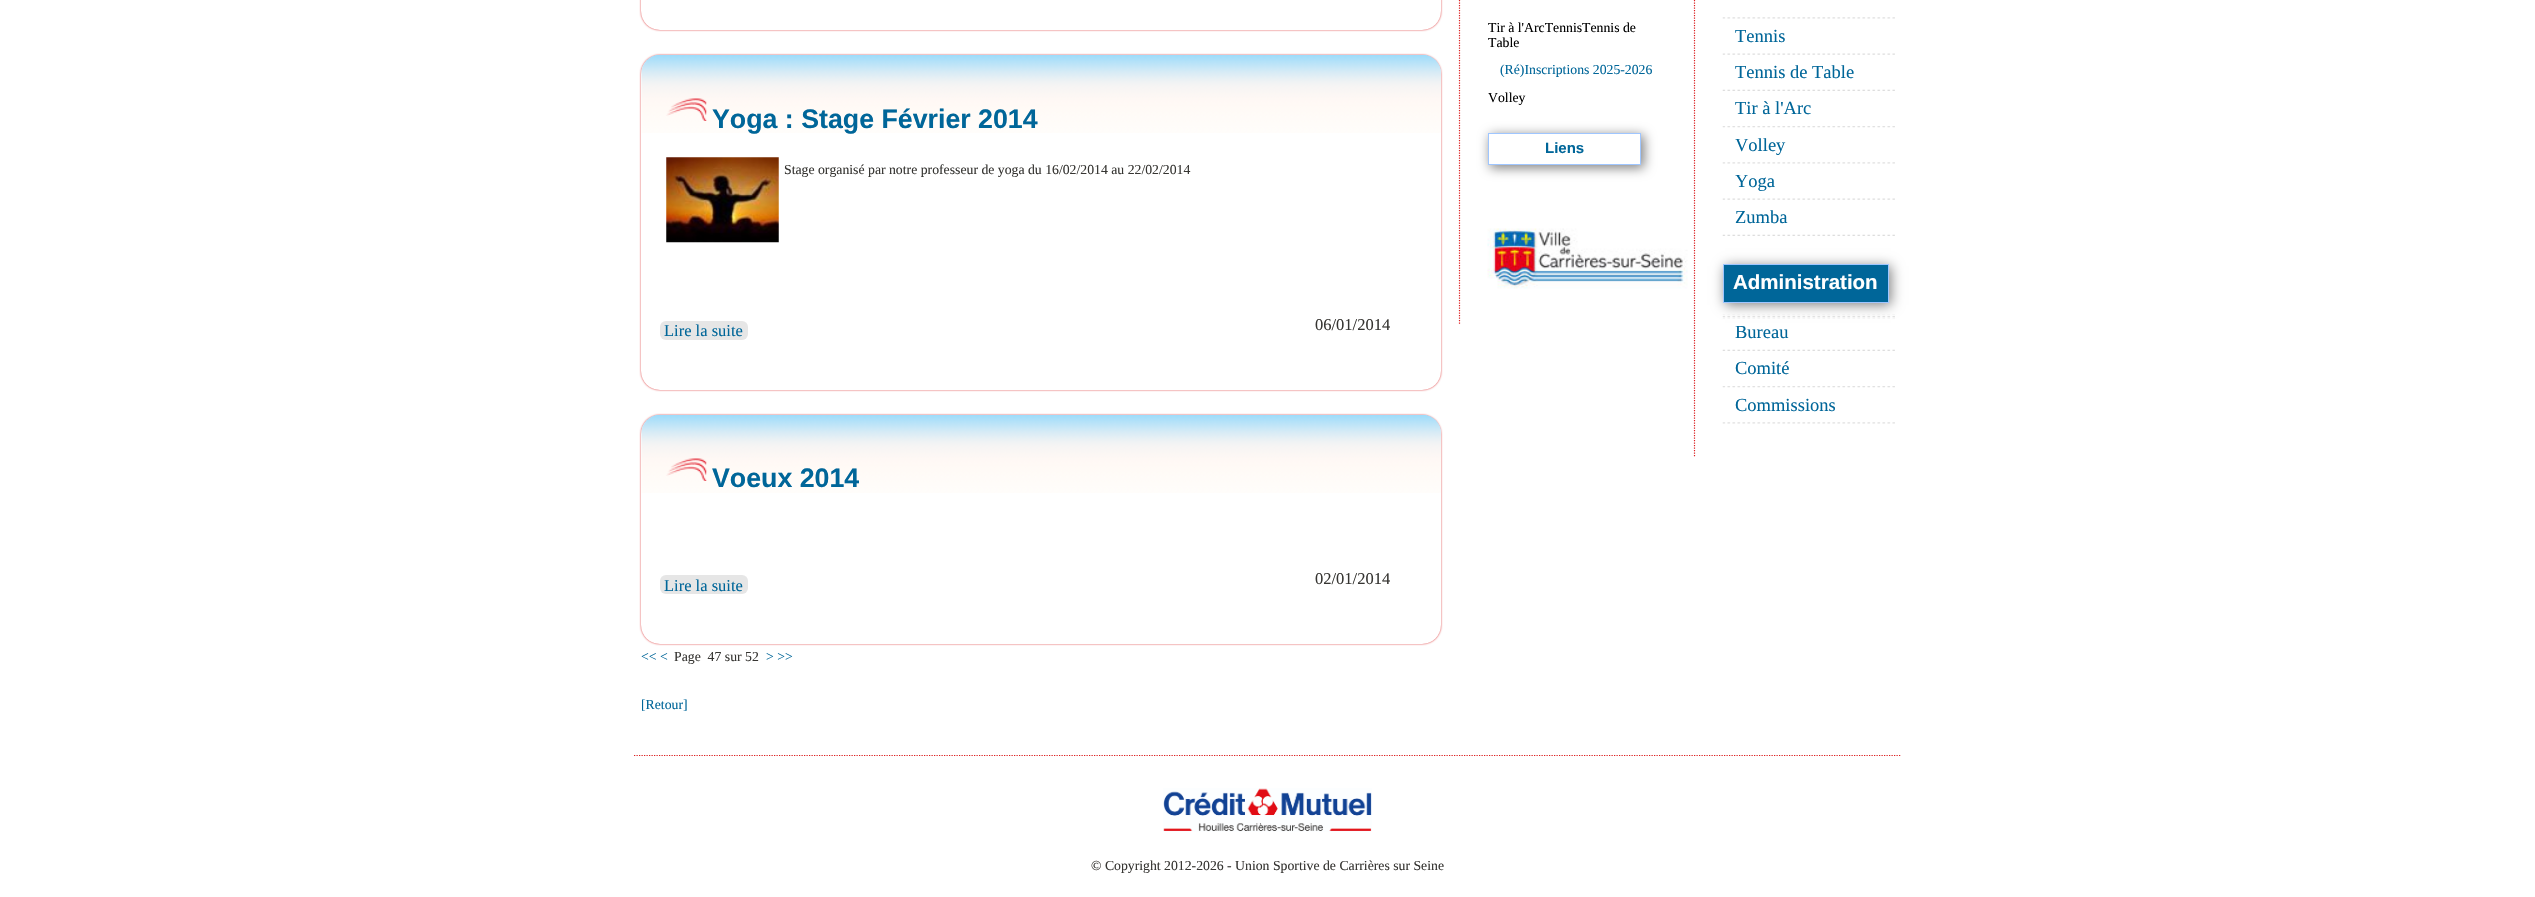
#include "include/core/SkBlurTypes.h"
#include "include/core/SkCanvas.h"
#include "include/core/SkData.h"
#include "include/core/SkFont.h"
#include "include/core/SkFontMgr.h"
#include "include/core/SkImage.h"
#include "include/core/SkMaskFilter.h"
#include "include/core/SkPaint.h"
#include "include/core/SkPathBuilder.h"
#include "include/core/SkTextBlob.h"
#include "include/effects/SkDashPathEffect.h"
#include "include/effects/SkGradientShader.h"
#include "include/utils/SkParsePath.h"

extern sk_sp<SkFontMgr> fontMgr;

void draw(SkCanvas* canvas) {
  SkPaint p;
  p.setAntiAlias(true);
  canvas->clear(SK_ColorWHITE);
  p.setColor(SkColorSetRGB(219, 30, 31));
  p.setMaskFilter(SkMaskFilter::MakeBlur(kNormal_SkBlurStyle, 1));
  canvas->drawRoundRect(SkRect::MakeLTRB(641, -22, 1441, 30), 19, 19, p);
  p.setMaskFilter(nullptr);
  p.setColor(SK_ColorWHITE);
  canvas->drawRoundRect(SkRect::MakeLTRB(641, -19, 1441, 30), 19, 19, p);
  p.setColor(SkColorSetRGB(219, 30, 31));
  p.setMaskFilter(SkMaskFilter::MakeBlur(kNormal_SkBlurStyle, 1));
  canvas->drawRoundRect(SkRect::MakeLTRB(641, 55, 1441, 390), 19, 19, p);
  p.setMaskFilter(nullptr);
  p.setColor(SK_ColorWHITE);
  canvas->drawRoundRect(SkRect::MakeLTRB(641, 55, 1441, 390), 19, 19, p);
  canvas->drawImageRect(SkImages::DeferredFromEncodedData(SkData::MakeFromFileName("images/1.png")), SkRect::MakeLTRB(641, 54, 1441, 133), SkSamplingOptions());
  canvas->drawImageRect(SkImages::DeferredFromEncodedData(SkData::MakeFromFileName("images/2.png")), SkRect::MakeLTRB(666, 98, 707, 121), SkSamplingOptions());
  canvas->drawImageRect(SkImages::DeferredFromEncodedData(SkData::MakeFromFileName("images/3.png")), SkRect::MakeLTRB(666, 157, 779, 243), SkSamplingOptions());
  p.setColor(SkColorSetRGB(230, 230, 230));
  canvas->drawRoundRect(SkRect::MakeLTRB(660, 321, 748, 340), 6, 6, p);
  p.setColor(SkColorSetRGB(219, 30, 31));
  p.setMaskFilter(SkMaskFilter::MakeBlur(kNormal_SkBlurStyle, 1));
  canvas->drawRoundRect(SkRect::MakeLTRB(641, 415, 1441, 644), 19, 19, p);
  p.setMaskFilter(nullptr);
  p.setColor(SK_ColorWHITE);
  canvas->drawRoundRect(SkRect::MakeLTRB(641, 415, 1441, 644), 19, 19, p);
  canvas->drawImageRect(SkImages::DeferredFromEncodedData(SkData::MakeFromFileName("images/4.png")), SkRect::MakeLTRB(641, 414, 1441, 493), SkSamplingOptions());
  canvas->drawImageRect(SkImages::DeferredFromEncodedData(SkData::MakeFromFileName("images/2.png")), SkRect::MakeLTRB(666, 458, 707, 481), SkSamplingOptions());
  p.setColor(SkColorSetRGB(230, 230, 230));
  canvas->drawRoundRect(SkRect::MakeLTRB(660, 575, 748, 594), 6, 6, p);
  p.setStyle(SkPaint::kStroke_Style);
  p.setStrokeWidth(1.2f);
  p.setColor(SkColorSetRGB(219, 30, 31));
  p.setPathEffect(SkDashPathEffect::Make({{1.25f, 1.25f}}, 0));
  canvas->drawPath(SkPathBuilder().moveTo(1459.5f, -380).lineTo(1459.5f, 324).detach(), p);
  p.setPathEffect(nullptr);
  canvas->save();
  canvas->clipPath(SkPathBuilder(SkPathFillType::kEvenOdd).moveTo(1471, 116).lineTo(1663, 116).lineTo(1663, 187).lineTo(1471, 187).close().moveTo(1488, 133).lineTo(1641, 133).lineTo(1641, 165).lineTo(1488, 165).close().detach(), true);
  p.setStyle(SkPaint::kFill_Style);
  p.setColor(SkColorSetRGB(128, 128, 128));
  p.setMaskFilter(SkMaskFilter::MakeBlur(kNormal_SkBlurStyle, 6));
  canvas->drawRect(SkRect::MakeLTRB(1490, 135, 1644, 168), p);
  p.setMaskFilter(nullptr);
  canvas->restore();
  p.setStyle(SkPaint::kStroke_Style);
  p.setStrokeWidth(1);
  p.setColor(SkColorSetRGB(159, 198, 255));
  canvas->drawRect(SkRect::MakeLTRB(1488.5f, 133.5f, 1640.5f, 164.5f), p);
  canvas->drawImageRect(SkImages::DeferredFromEncodedData(SkData::MakeFromFileName("images/5.png")), SkRect::MakeLTRB(1487, 228, 1688, 289), SkSamplingOptions());
  p.setStrokeWidth(1.2f);
  p.setColor(SkColorSetRGB(219, 30, 31));
  p.setPathEffect(SkDashPathEffect::Make({{1.25f, 1.25f}}, 0));
  canvas->drawPath(SkPathBuilder().moveTo(1694.5f, -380).lineTo(1694.5f, 457.5f).detach(), p);
  p.setPathEffect(nullptr);
  canvas->drawImageRect(SkImages::DeferredFromEncodedData(SkData::MakeFromFileName("images/6.png")), SkRect::MakeLTRB(1722, 17, 1895, 19), SkSamplingOptions());
  canvas->drawImageRect(SkImages::DeferredFromEncodedData(SkData::MakeFromFileName("images/7.png")), SkRect::MakeLTRB(1722, 53, 1895, 55), SkSamplingOptions());
  canvas->drawImageRect(SkImages::DeferredFromEncodedData(SkData::MakeFromFileName("images/8.png")), SkRect::MakeLTRB(1722, 89, 1895, 91), SkSamplingOptions());
  canvas->drawImageRect(SkImages::DeferredFromEncodedData(SkData::MakeFromFileName("images/9.png")), SkRect::MakeLTRB(1722, 126, 1895, 128), SkSamplingOptions());
  canvas->drawImageRect(SkImages::DeferredFromEncodedData(SkData::MakeFromFileName("images/10.png")), SkRect::MakeLTRB(1722, 162, 1895, 164), SkSamplingOptions());
  canvas->drawImageRect(SkImages::DeferredFromEncodedData(SkData::MakeFromFileName("images/7.png")), SkRect::MakeLTRB(1722, 198, 1895, 200), SkSamplingOptions());
  canvas->drawImageRect(SkImages::DeferredFromEncodedData(SkData::MakeFromFileName("images/8.png")), SkRect::MakeLTRB(1722, 234, 1895, 236), SkSamplingOptions());
  p.setStyle(SkPaint::kFill_Style);
  p.setColor(SkColorSetRGB(128, 128, 128));
  p.setMaskFilter(SkMaskFilter::MakeBlur(kNormal_SkBlurStyle, 6));
  canvas->drawRect(SkRect::MakeLTRB(1725, 266, 1891, 305), p);
  p.setMaskFilter(nullptr);
  p.setColor(SkColorSetRGB(0, 102, 153));
  canvas->drawRect(SkRect::MakeLTRB(1723.5f, 264.5f, 1888.5f, 302.5f), p);
  p.setStyle(SkPaint::kStroke_Style);
  p.setStrokeWidth(1);
  p.setColor(SkColorSetRGB(159, 198, 255));
  canvas->drawRect(SkRect::MakeLTRB(1723.5f, 264.5f, 1888.5f, 302.5f), p);
  canvas->drawImageRect(SkImages::DeferredFromEncodedData(SkData::MakeFromFileName("images/11.png")), SkRect::MakeLTRB(1722, 314, 1895, 319), SkSamplingOptions());
  canvas->drawImageRect(SkImages::DeferredFromEncodedData(SkData::MakeFromFileName("images/8.png")), SkRect::MakeLTRB(1722, 349, 1895, 351), SkSamplingOptions());
  canvas->drawImageRect(SkImages::DeferredFromEncodedData(SkData::MakeFromFileName("images/9.png")), SkRect::MakeLTRB(1722, 386, 1895, 388), SkSamplingOptions());
  canvas->drawImageRect(SkImages::DeferredFromEncodedData(SkData::MakeFromFileName("images/10.png")), SkRect::MakeLTRB(1722, 422, 1895, 424), SkSamplingOptions());
  p.setStrokeWidth(1.2f);
  p.setColor(SkColorSetRGB(219, 30, 31));
  p.setPathEffect(SkDashPathEffect::Make({{1.25f, 1.25f}}, 0));
  canvas->drawPath(SkPathBuilder().moveTo(634, 755.5f).lineTo(1901, 755.5f).detach(), p);
  p.setPathEffect(nullptr);
  canvas->drawImageRect(SkImages::DeferredFromEncodedData(SkData::MakeFromFileName("images/12.png")), SkRect::MakeLTRB(1163, 788, 1372, 832), SkSamplingOptions());
  SkFont font1(fontMgr->matchFamilyStyle("Liberation Sans", SkFontStyle::Bold()), 26.75f);
  font1.setSubpixel(true);
  p.setStyle(SkPaint::kFill_Style);
  p.setColor(SkColorSetRGB(0, 102, 153));
  canvas->drawString("Yoga : Stage Février 2014", 712, 128, font1, p);
  SkFont font2(fontMgr->matchFamilyStyle("Liberation Serif", SkFontStyle::Normal()), 13.75f);
  font2.setSubpixel(true);
  p.setColor(SkColorSetRGB(54, 53, 50));
  canvas->drawString("Stage organisé par notre professeur de yoga du 16/02/2014 au 22/02/2014", 784, 174, font2, p);
  SkFont font3(fontMgr->matchFamilyStyle("Liberation Serif", SkFontStyle::Normal()), 16.5f);
  font3.setSubpixel(true);
  p.setColor(SkColorSetRGB(0, 102, 153));
  canvas->drawString("Lire la suite", 664, 336, font3, p);
  p.setColor(SkColorSetRGB(54, 53, 50));
  canvas->drawString("06/01/2014", 1315, 330, font3, p);
  p.setColor(SkColorSetRGB(0, 102, 153));
  canvas->drawString("Voeux 2014", 712, 487, font1, p);
  canvas->drawString("Lire la suite", 664, 591, font3, p);
  p.setColor(SkColorSetRGB(54, 53, 50));
  canvas->drawString("02/01/2014", 1315, 584, font3, p);
  p.setColor(SkColorSetRGB(0, 102, 153));
  canvas->drawString("<< <", 641, 661, font2, p);
  p.setColor(SkColorSetRGB(54, 53, 50));
  canvas->drawString("Page  47 sur 52", 674, 661, font2, p);
  p.setColor(SkColorSetRGB(0, 102, 153));
  canvas->drawString("> >>", 766, 661, font2, p);
  canvas->drawString("[Retour]", 641, 709, font2, p);
  p.setColor(SK_ColorBLACK);
  canvas->drawString("Tir à l'ArcTennisTennis de", 1488, 32, font2, p);
  canvas->drawString("Table", 1488, 47, font2, p);
  p.setColor(SkColorSetRGB(0, 102, 153));
  canvas->drawString("(Ré)Inscriptions 2025-2026", 1500, 74, font2, p);
  p.setColor(SK_ColorBLACK);
  canvas->drawString("Volley", 1488, 102, font2, p);
  SkFont font4(fontMgr->matchFamilyStyle("Liberation Sans", SkFontStyle::Bold()), 15);
  font4.setSubpixel(true);
  p.setColor(SkColorSetRGB(0, 102, 153));
  canvas->drawString("Liens", 1545, 153, font4, p);
  SkFont font5(fontMgr->matchFamilyStyle("Liberation Serif", SkFontStyle::Normal()), 18.5f);
  font5.setSubpixel(true);
  canvas->drawString("Tennis", 1735, 42, font5, p);
  canvas->drawString("Tennis de Table", 1735, 78, font5, p);
  canvas->drawString("Tir à l'Arc", 1735, 114, font5, p);
  canvas->drawString("Volley", 1735, 151, font5, p);
  canvas->drawString("Yoga", 1735, 187, font5, p);
  canvas->drawString("Zumba", 1735, 223, font5, p);
  SkFont font6(fontMgr->matchFamilyStyle("Liberation Sans", SkFontStyle::Bold()), 20.5f);
  font6.setSubpixel(true);
  p.setColor(SK_ColorWHITE);
  canvas->drawString("Administration", 1733, 289, font6, p);
  p.setColor(SkColorSetRGB(0, 102, 153));
  canvas->drawString("Bureau", 1735, 338, font5, p);
  canvas->drawString("Comité", 1735, 374, font5, p);
  canvas->drawString("Commissions", 1735, 411, font5, p);
  p.setColor(SkColorSetRGB(54, 53, 50));
  canvas->drawString("© Copyright 2012-2026 - Union Sportive de Carrières sur Seine", 1091, 870, font2, p);
}
